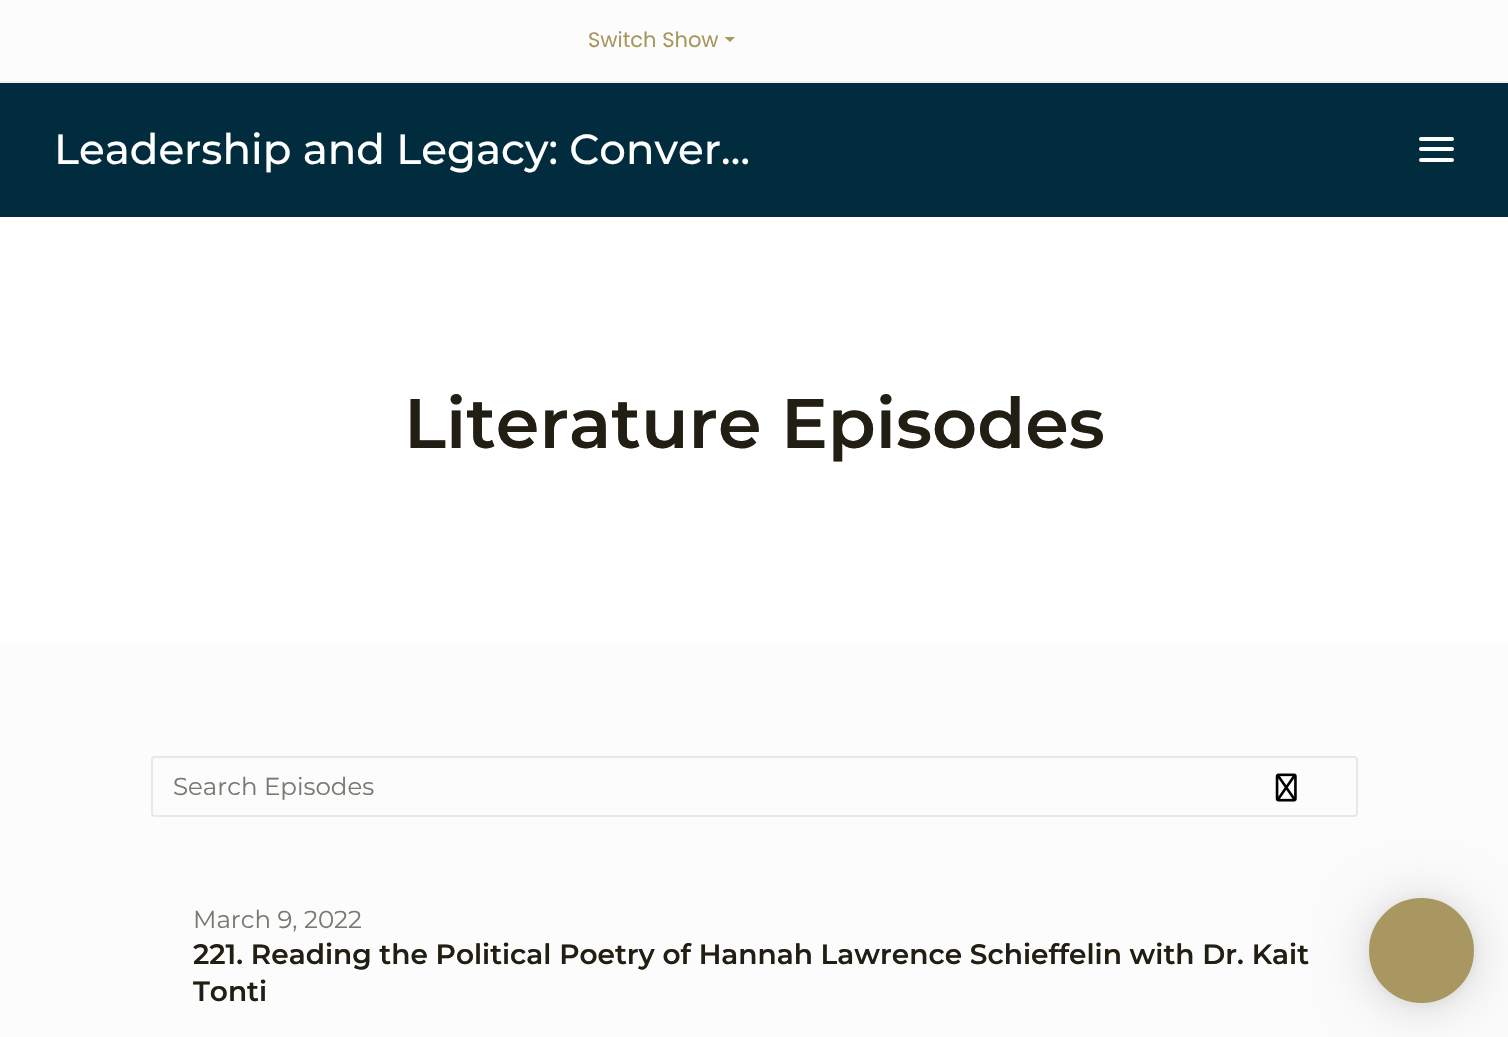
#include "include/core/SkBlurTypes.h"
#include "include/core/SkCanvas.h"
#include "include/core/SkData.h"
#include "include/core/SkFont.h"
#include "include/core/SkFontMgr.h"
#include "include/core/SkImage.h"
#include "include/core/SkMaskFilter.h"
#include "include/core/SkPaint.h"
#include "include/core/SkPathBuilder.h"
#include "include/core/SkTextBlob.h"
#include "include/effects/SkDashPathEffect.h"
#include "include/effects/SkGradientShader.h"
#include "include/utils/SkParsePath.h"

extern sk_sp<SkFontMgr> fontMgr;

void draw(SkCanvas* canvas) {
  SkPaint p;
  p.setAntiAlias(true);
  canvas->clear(SkColorSetRGB(252, 252, 252));
  p.setColor(SkColorSetRGB(241, 241, 241));
  canvas->drawRect(SkRect::MakeLTRB(0, 81, 1508, 83), p);
  p.setColor(SkColorSetRGB(168, 151, 96));
  canvas->drawPath(SkPathBuilder().moveTo(724.5f, 37).lineTo(735, 37).lineTo(730, 42).close().detach(), p);
  p.setColor(SkColorSetRGB(0, 44, 61));
  canvas->drawRect(SkRect::MakeLTRB(0, 83, 1508, 217), p);
  p.setColor(SK_ColorWHITE);
  canvas->drawRoundRect(SkRect::MakeLTRB(1419, 137, 1454, 141), 2, 2, p);
  canvas->drawRoundRect(SkRect::MakeLTRB(1419, 147, 1454, 151), 2, 2, p);
  canvas->drawRoundRect(SkRect::MakeLTRB(1419, 158, 1454, 162), 2, 2, p);
  canvas->drawRect(SkRect::MakeLTRB(0, 217, 1508, 644), p);
  p.setStyle(SkPaint::kStroke_Style);
  p.setStrokeWidth(2);
  p.setColor(SkColorSetRGB(232, 232, 230));
  canvas->drawRoundRect(SkRect::MakeLTRB(152, 757, 1357, 816), 3, 3, p);
  canvas->drawImageRect(SkImages::DeferredFromEncodedData(SkData::MakeFromFileName("images/1.png")), SkRect::MakeLTRB(1275, 773, 1297, 802), SkSamplingOptions());
  p.setStyle(SkPaint::kFill_Style);
  p.setColor(SkColorSetARGB(41, 0, 0, 0));
  p.setMaskFilter(SkMaskFilter::MakeBlur(kNormal_SkBlurStyle, 28));
  canvas->drawRoundRect(SkRect::MakeLTRB(1369, 901, 1474, 1006), 52.5f, 52.5f, p);
  p.setMaskFilter(nullptr);
  p.setColor(SkColorSetARGB(15, 0, 0, 0));
  p.setMaskFilter(SkMaskFilter::MakeBlur(kNormal_SkBlurStyle, 5));
  canvas->drawRoundRect(SkRect::MakeLTRB(1369, 900, 1474, 1005), 52.5f, 52.5f, p);
  p.setMaskFilter(nullptr);
  p.setColor(SkColorSetRGB(168, 151, 96));
  canvas->drawCircle(1421.5f, 950.5f, 51.5f, p);
  p.setStyle(SkPaint::kStroke_Style);
  canvas->drawCircle(1421.5f, 950.5f, 51.5f, p);
  SkFont font1(fontMgr->matchFamilyStyle("Poppins", SkFontStyle::Normal()), 21);
  font1.setSubpixel(true);
  p.setStyle(SkPaint::kFill_Style);
  canvas->drawString("Switch Show", 588, 47, font1, p);
  SkFont font2(fontMgr->matchFamilyStyle("Montserrat", SkFontStyle(500, SkFontStyle::kNormal_Width, SkFontStyle::kUpright_Slant)), 42);
  font2.setSubpixel(true);
  p.setColor(SK_ColorWHITE);
  canvas->drawString("Leadership and Legacy: Conver…", 54, 164, font2, p);
  SkFont font3(fontMgr->matchFamilyStyle("Montserrat", SkFontStyle(600, SkFontStyle::kNormal_Width, SkFontStyle::kUpright_Slant)), 70);
  font3.setSubpixel(true);
  p.setColor(SkColorSetRGB(33, 30, 19));
  canvas->drawString("Literature Episodes", 404, 448, font3, p);
  SkFont font4(fontMgr->matchFamilyStyle("Montserrat", SkFontStyle::Normal()), 24.5f);
  font4.setSubpixel(true);
  p.setColor(SkColorSetRGB(121, 120, 113));
  canvas->drawString("Search Episodes", 173, 795, font4, p);
  canvas->drawString("March 9, 2022", 193, 928, font4, p);
  SkFont font5(fontMgr->matchFamilyStyle("Montserrat", SkFontStyle(600, SkFontStyle::kNormal_Width, SkFontStyle::kUpright_Slant)), 28);
  font5.setSubpixel(true);
  p.setColor(SkColorSetRGB(33, 30, 19));
  canvas->drawString("221. Reading the Political Poetry of Hannah Lawrence Schieffelin with Dr. Kait", 193, 964, font5, p);
  canvas->drawString("Tonti", 193, 1001, font5, p);
}
